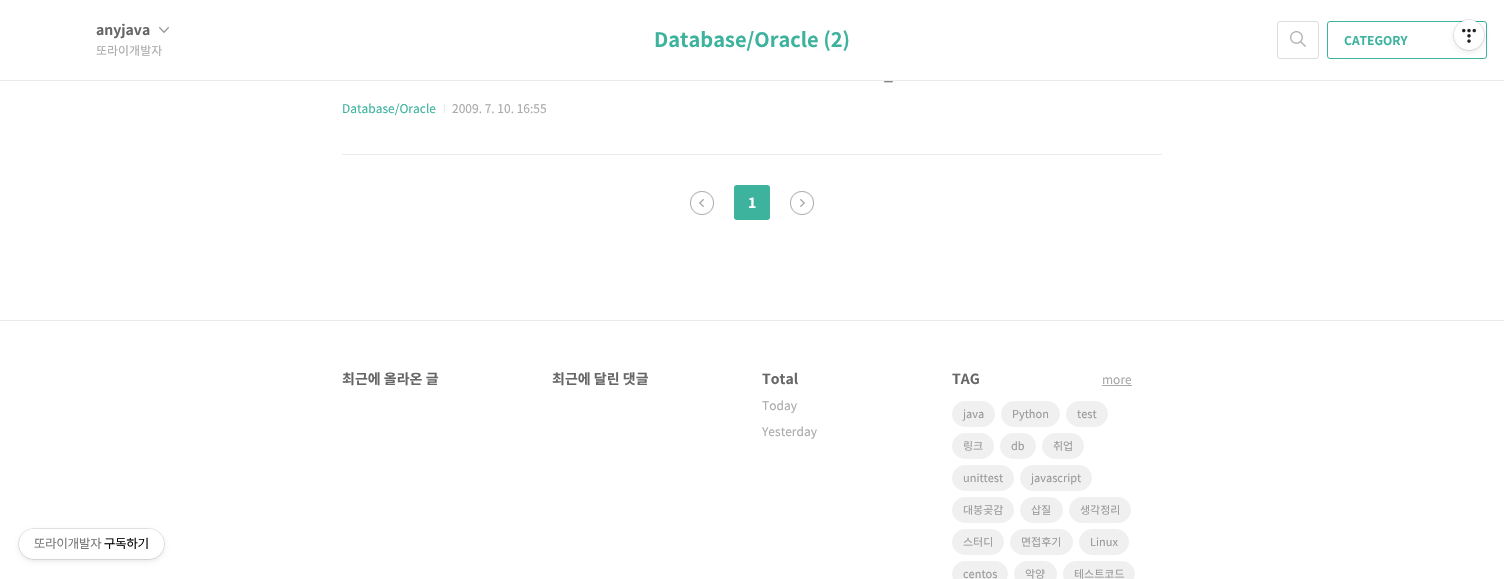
#include "include/core/SkBlurTypes.h"
#include "include/core/SkCanvas.h"
#include "include/core/SkData.h"
#include "include/core/SkFont.h"
#include "include/core/SkFontMgr.h"
#include "include/core/SkImage.h"
#include "include/core/SkMaskFilter.h"
#include "include/core/SkPaint.h"
#include "include/core/SkPathBuilder.h"
#include "include/core/SkTextBlob.h"
#include "include/effects/SkDashPathEffect.h"
#include "include/effects/SkGradientShader.h"
#include "include/utils/SkParsePath.h"

extern sk_sp<SkFontMgr> fontMgr;

void draw(SkCanvas* canvas) {
  SkPaint p;
  p.setAntiAlias(true);
  canvas->clear(SK_ColorWHITE);
  p.setColor(SkColorSetARGB(26, 0, 0, 0));
  p.setMaskFilter(SkMaskFilter::MakeBlur(kNormal_SkBlurStyle, 2.5f));
  canvas->drawRoundRect(SkRect::MakeLTRB(19, 531, 164, 561), 15, 15, p);
  p.setMaskFilter(nullptr);
  p.setStyle(SkPaint::kStroke_Style);
  p.setStrokeWidth(1);
  canvas->drawRoundRect(SkRect::MakeLTRB(18.5f, 528.5f, 164.5f, 559.5f), 15.5f, 15.5f, p);
  p.setStyle(SkPaint::kFill_Style);
  p.setColor(SK_ColorWHITE);
  canvas->drawRoundRect(SkRect::MakeLTRB(19, 529, 164, 559), 15, 15, p);
  p.setColor(SkColorSetRGB(235, 235, 235));
  canvas->drawRect(SkRect::MakeLTRB(0, 80, 1504, 81), p);
  canvas->drawImageRect(SkImages::DeferredFromEncodedData(SkData::MakeFromFileName("images/1.png")), SkRect::MakeLTRB(159, 27, 169, 33), SkSamplingOptions());
  p.setStyle(SkPaint::kStroke_Style);
  p.setColor(SkColorSetRGB(221, 221, 221));
  canvas->drawRoundRect(SkRect::MakeLTRB(1277.5f, 21.5f, 1318.5f, 58.5f), 2.5f, 2.5f, p);
  canvas->drawImageRect(SkImages::DeferredFromEncodedData(SkData::MakeFromFileName("images/2.png")), SkRect::MakeLTRB(1290, 31, 1306, 47), SkSamplingOptions());
  p.setColor(SkColorSetRGB(61, 179, 158));
  canvas->drawRoundRect(SkRect::MakeLTRB(1327.5f, 21.5f, 1486.5f, 58.5f), 2.5f, 2.5f, p);
  p.setStyle(SkPaint::kFill_Style);
  p.setColor(SkColorSetRGB(235, 235, 235));
  canvas->drawRect(SkRect::MakeLTRB(342, 154, 1162, 155), p);
  canvas->drawRect(SkRect::MakeLTRB(444, 104, 445, 113), p);
  canvas->drawImageRect(SkImages::DeferredFromEncodedData(SkData::MakeFromFileName("images/3.png")), SkRect::MakeLTRB(690, 191, 714, 215), SkSamplingOptions());
  p.setColor(SkColorSetRGB(61, 179, 158));
  canvas->drawRoundRect(SkRect::MakeLTRB(734, 185, 770, 220), 3, 3, p);
  canvas->drawImageRect(SkImages::DeferredFromEncodedData(SkData::MakeFromFileName("images/4.png")), SkRect::MakeLTRB(790, 191, 814, 215), SkSamplingOptions());
  p.setColor(SkColorSetRGB(235, 235, 235));
  canvas->drawRect(SkRect::MakeLTRB(0, 320, 1504, 321), p);
  p.setColor(SkColorSetRGB(170, 170, 170));
  canvas->drawRect(SkRect::MakeLTRB(1102, 385, 1132, 386), p);
  p.setColor(SkColorSetRGB(240, 240, 240));
  canvas->drawRoundRect(SkRect::MakeLTRB(952.5f, 401.5f, 994.5f, 426.5f), 12.5f, 12.5f, p);
  p.setStyle(SkPaint::kStroke_Style);
  canvas->drawRoundRect(SkRect::MakeLTRB(952.5f, 401.5f, 994.5f, 426.5f), 12.5f, 12.5f, p);
  p.setStyle(SkPaint::kFill_Style);
  canvas->drawRoundRect(SkRect::MakeLTRB(1001.5f, 401.5f, 1059.5f, 426.5f), 12.5f, 12.5f, p);
  p.setStyle(SkPaint::kStroke_Style);
  canvas->drawRoundRect(SkRect::MakeLTRB(1001.5f, 401.5f, 1059.5f, 426.5f), 12.5f, 12.5f, p);
  p.setStyle(SkPaint::kFill_Style);
  canvas->drawRoundRect(SkRect::MakeLTRB(1066.5f, 401.5f, 1107.5f, 426.5f), 12.5f, 12.5f, p);
  p.setStyle(SkPaint::kStroke_Style);
  canvas->drawRoundRect(SkRect::MakeLTRB(1066.5f, 401.5f, 1107.5f, 426.5f), 12.5f, 12.5f, p);
  p.setStyle(SkPaint::kFill_Style);
  canvas->drawRoundRect(SkRect::MakeLTRB(952.5f, 433.5f, 993.5f, 458.5f), 12.5f, 12.5f, p);
  p.setStyle(SkPaint::kStroke_Style);
  canvas->drawRoundRect(SkRect::MakeLTRB(952.5f, 433.5f, 993.5f, 458.5f), 12.5f, 12.5f, p);
  p.setStyle(SkPaint::kFill_Style);
  canvas->drawRoundRect(SkRect::MakeLTRB(1000.5f, 433.5f, 1035.5f, 458.5f), 12.5f, 12.5f, p);
  p.setStyle(SkPaint::kStroke_Style);
  canvas->drawRoundRect(SkRect::MakeLTRB(1000.5f, 433.5f, 1035.5f, 458.5f), 12.5f, 12.5f, p);
  p.setStyle(SkPaint::kFill_Style);
  canvas->drawRoundRect(SkRect::MakeLTRB(1042.5f, 433.5f, 1083.5f, 458.5f), 12.5f, 12.5f, p);
  p.setStyle(SkPaint::kStroke_Style);
  canvas->drawRoundRect(SkRect::MakeLTRB(1042.5f, 433.5f, 1083.5f, 458.5f), 12.5f, 12.5f, p);
  p.setStyle(SkPaint::kFill_Style);
  canvas->drawRoundRect(SkRect::MakeLTRB(952.5f, 465.5f, 1013.5f, 490.5f), 12.5f, 12.5f, p);
  p.setStyle(SkPaint::kStroke_Style);
  canvas->drawRoundRect(SkRect::MakeLTRB(952.5f, 465.5f, 1013.5f, 490.5f), 12.5f, 12.5f, p);
  p.setStyle(SkPaint::kFill_Style);
  canvas->drawRoundRect(SkRect::MakeLTRB(1020.5f, 465.5f, 1091.5f, 490.5f), 12.5f, 12.5f, p);
  p.setStyle(SkPaint::kStroke_Style);
  canvas->drawRoundRect(SkRect::MakeLTRB(1020.5f, 465.5f, 1091.5f, 490.5f), 12.5f, 12.5f, p);
  p.setStyle(SkPaint::kFill_Style);
  canvas->drawRoundRect(SkRect::MakeLTRB(952.5f, 497.5f, 1013.5f, 522.5f), 12.5f, 12.5f, p);
  p.setStyle(SkPaint::kStroke_Style);
  canvas->drawRoundRect(SkRect::MakeLTRB(952.5f, 497.5f, 1013.5f, 522.5f), 12.5f, 12.5f, p);
  p.setStyle(SkPaint::kFill_Style);
  canvas->drawRoundRect(SkRect::MakeLTRB(1020.5f, 497.5f, 1062.5f, 522.5f), 12.5f, 12.5f, p);
  p.setStyle(SkPaint::kStroke_Style);
  canvas->drawRoundRect(SkRect::MakeLTRB(1020.5f, 497.5f, 1062.5f, 522.5f), 12.5f, 12.5f, p);
  p.setStyle(SkPaint::kFill_Style);
  canvas->drawRoundRect(SkRect::MakeLTRB(1069.5f, 497.5f, 1130.5f, 522.5f), 12.5f, 12.5f, p);
  p.setStyle(SkPaint::kStroke_Style);
  canvas->drawRoundRect(SkRect::MakeLTRB(1069.5f, 497.5f, 1130.5f, 522.5f), 12.5f, 12.5f, p);
  p.setStyle(SkPaint::kFill_Style);
  canvas->drawRoundRect(SkRect::MakeLTRB(952.5f, 529.5f, 1003.5f, 554.5f), 12.5f, 12.5f, p);
  p.setStyle(SkPaint::kStroke_Style);
  canvas->drawRoundRect(SkRect::MakeLTRB(952.5f, 529.5f, 1003.5f, 554.5f), 12.5f, 12.5f, p);
  p.setStyle(SkPaint::kFill_Style);
  canvas->drawRoundRect(SkRect::MakeLTRB(1010.5f, 529.5f, 1072.5f, 554.5f), 12.5f, 12.5f, p);
  p.setStyle(SkPaint::kStroke_Style);
  canvas->drawRoundRect(SkRect::MakeLTRB(1010.5f, 529.5f, 1072.5f, 554.5f), 12.5f, 12.5f, p);
  p.setStyle(SkPaint::kFill_Style);
  canvas->drawRoundRect(SkRect::MakeLTRB(1079.5f, 529.5f, 1128.5f, 554.5f), 12.5f, 12.5f, p);
  p.setStyle(SkPaint::kStroke_Style);
  canvas->drawRoundRect(SkRect::MakeLTRB(1079.5f, 529.5f, 1128.5f, 554.5f), 12.5f, 12.5f, p);
  p.setStyle(SkPaint::kFill_Style);
  canvas->drawRoundRect(SkRect::MakeLTRB(952.5f, 561.5f, 1007.5f, 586.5f), 12.5f, 12.5f, p);
  p.setStyle(SkPaint::kStroke_Style);
  canvas->drawRoundRect(SkRect::MakeLTRB(952.5f, 561.5f, 1007.5f, 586.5f), 12.5f, 12.5f, p);
  p.setStyle(SkPaint::kFill_Style);
  canvas->drawRoundRect(SkRect::MakeLTRB(1014.5f, 561.5f, 1056.5f, 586.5f), 12.5f, 12.5f, p);
  p.setStyle(SkPaint::kStroke_Style);
  canvas->drawRoundRect(SkRect::MakeLTRB(1014.5f, 561.5f, 1056.5f, 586.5f), 12.5f, 12.5f, p);
  p.setStyle(SkPaint::kFill_Style);
  canvas->drawRoundRect(SkRect::MakeLTRB(1063.5f, 561.5f, 1134.5f, 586.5f), 12.5f, 12.5f, p);
  p.setStyle(SkPaint::kStroke_Style);
  canvas->drawRoundRect(SkRect::MakeLTRB(1063.5f, 561.5f, 1134.5f, 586.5f), 12.5f, 12.5f, p);
  p.setStyle(SkPaint::kFill_Style);
  p.setColor(SkColorSetARGB(26, 0, 0, 0));
  p.setMaskFilter(SkMaskFilter::MakeBlur(kNormal_SkBlurStyle, 2.5f));
  canvas->drawRoundRect(SkRect::MakeLTRB(1454, 22, 1484, 52), 15, 15, p);
  p.setMaskFilter(nullptr);
  p.setStyle(SkPaint::kStroke_Style);
  canvas->drawCircle(1469, 35, 15.5f, p);
  p.setStyle(SkPaint::kFill_Style);
  p.setColor(SK_ColorWHITE);
  canvas->drawCircle(1469, 35, 15, p);
  canvas->drawImageRect(SkImages::DeferredFromEncodedData(SkData::MakeFromFileName("images/5.png")), SkRect::MakeLTRB(1462, 28, 1476, 43), SkSamplingOptions());
  SkFont font1(fontMgr->matchFamilyStyle("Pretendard", SkFontStyle::Normal()), 13);
  font1.setSubpixel(true);
  p.setColor(SkColorSetRGB(119, 119, 119));
  canvas->drawString("또라이개발자", 34, 548, font1, p);
  p.setColor(SK_ColorBLACK);
  canvas->drawString("구독하기", 104, 548, font1, p);
  SkFont font2(fontMgr->matchFamilyStyle("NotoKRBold", SkFontStyle::Bold()), 14);
  font2.setSubpixel(true);
  p.setColor(SkColorSetRGB(102, 102, 102));
  canvas->drawString("anyjava", 96, 35, font2, p);
  SkFont font3(fontMgr->matchFamilyStyle("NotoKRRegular", SkFontStyle::Normal()), 12);
  font3.setSubpixel(true);
  p.setColor(SkColorSetRGB(170, 170, 170));
  canvas->drawString("또라이개발자", 96, 55, font3, p);
  SkFont font4(fontMgr->matchFamilyStyle("NotoKRBold", SkFontStyle::Bold()), 20);
  font4.setSubpixel(true);
  p.setColor(SkColorSetRGB(61, 179, 158));
  canvas->drawString("Database/Oracle (2)", 654, 47, font4, p);
  SkFont font5(fontMgr->matchFamilyStyle("NotoKRBold", SkFontStyle::Bold()), 12);
  font5.setSubpixel(true);
  canvas->drawString("CATEGORY", 1344, 45, font5, p);
  SkFont font6(fontMgr->matchFamilyStyle("NotoKRRegular", SkFontStyle::Normal()), 16);
  font6.setSubpixel(true);
  p.setColor(SkColorSetRGB(102, 102, 102));
  canvas->drawString("_", 884, 80, font6, p);
  p.setColor(SkColorSetRGB(61, 179, 158));
  canvas->drawString("Database/Oracle", 342, 113, font3, p);
  p.setColor(SkColorSetRGB(170, 170, 170));
  canvas->drawString("2009. 7. 10. 16:55", 452, 113, font3, p);
  p.setColor(SK_ColorWHITE);
  canvas->drawString("1", 748, 208, font2, p);
  p.setColor(SkColorSetRGB(102, 102, 102));
  canvas->drawString("최근에 올라온 글", 342, 384, font2, p);
  canvas->drawString("최근에 달린 댓글", 552, 384, font2, p);
  canvas->drawString("Total", 762, 384, font2, p);
  p.setColor(SkColorSetRGB(170, 170, 170));
  canvas->drawString("Today", 762, 410, font3, p);
  canvas->drawString("Yesterday", 762, 436, font3, p);
  p.setColor(SkColorSetRGB(102, 102, 102));
  canvas->drawString("TAG", 952, 384, font2, p);
  p.setColor(SkColorSetRGB(170, 170, 170));
  canvas->drawString("more", 1102, 384, font3, p);
  SkFont font7(fontMgr->matchFamilyStyle("NotoKRRegular", SkFontStyle::Normal()), 11);
  font7.setSubpixel(true);
  p.setColor(SkColorSetRGB(153, 153, 153));
  canvas->drawString("java", 963, 418, font7, p);
  canvas->drawString("Python", 1012, 418, font7, p);
  canvas->drawString("test", 1077, 418, font7, p);
  canvas->drawString("링크", 963, 450, font7, p);
  canvas->drawString("db", 1011, 450, font7, p);
  canvas->drawString("취업", 1053, 450, font7, p);
  canvas->drawString("unittest", 963, 482, font7, p);
  canvas->drawString("javascript", 1031, 482, font7, p);
  canvas->drawString("대봉곶감", 963, 514, font7, p);
  canvas->drawString("삽질", 1031, 514, font7, p);
  canvas->drawString("생각정리", 1080, 514, font7, p);
  canvas->drawString("스터디", 963, 546, font7, p);
  canvas->drawString("면접후기", 1021, 546, font7, p);
  canvas->drawString("Linux", 1090, 546, font7, p);
  canvas->drawString("centos", 963, 578, font7, p);
  canvas->drawString("악양", 1025, 578, font7, p);
  canvas->drawString("테스트코드", 1074, 578, font7, p);
}
